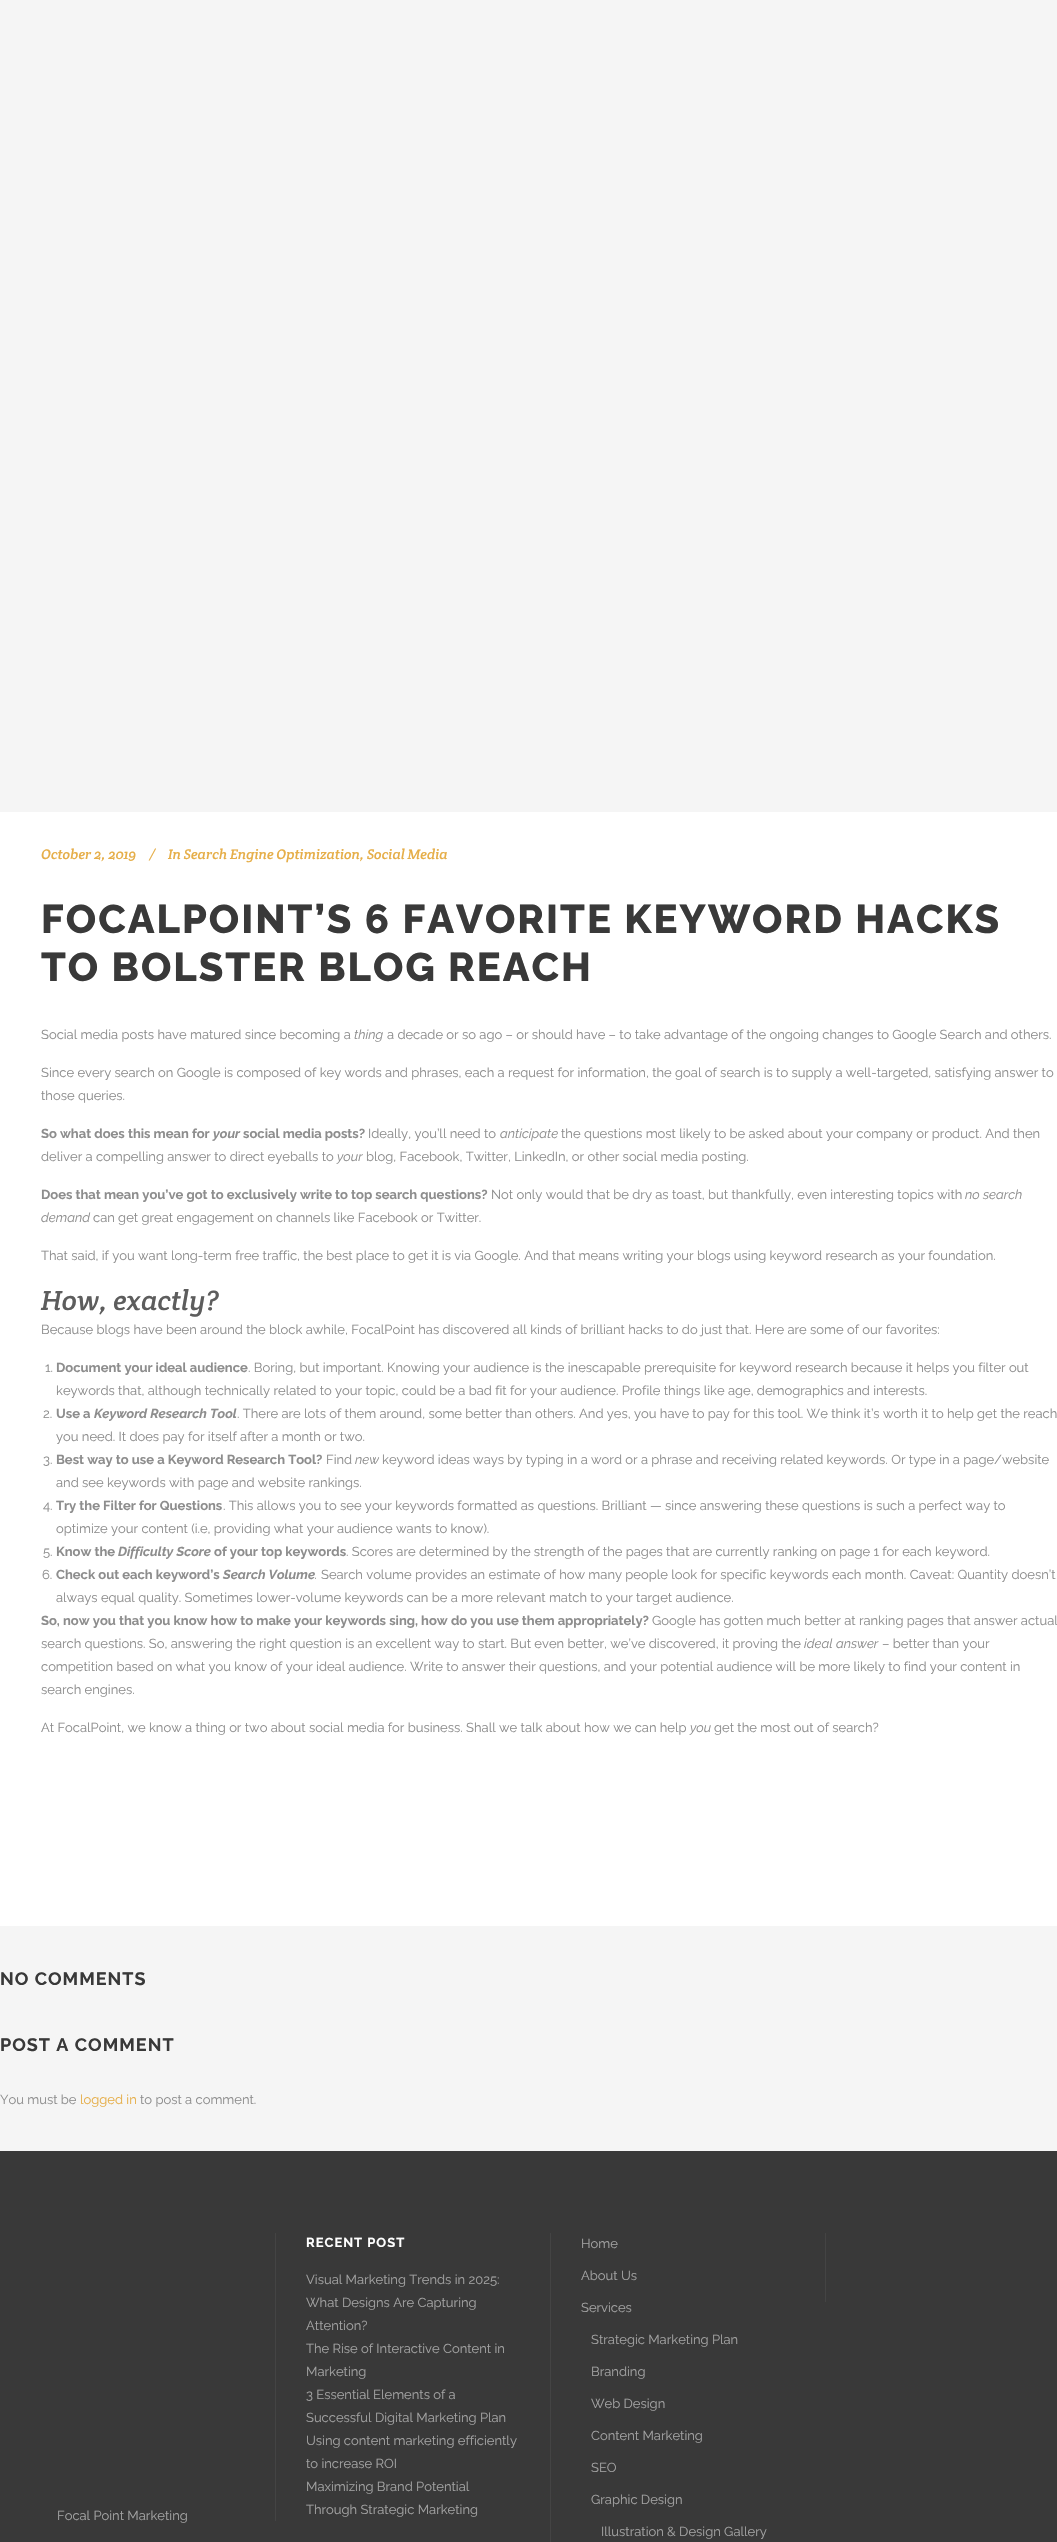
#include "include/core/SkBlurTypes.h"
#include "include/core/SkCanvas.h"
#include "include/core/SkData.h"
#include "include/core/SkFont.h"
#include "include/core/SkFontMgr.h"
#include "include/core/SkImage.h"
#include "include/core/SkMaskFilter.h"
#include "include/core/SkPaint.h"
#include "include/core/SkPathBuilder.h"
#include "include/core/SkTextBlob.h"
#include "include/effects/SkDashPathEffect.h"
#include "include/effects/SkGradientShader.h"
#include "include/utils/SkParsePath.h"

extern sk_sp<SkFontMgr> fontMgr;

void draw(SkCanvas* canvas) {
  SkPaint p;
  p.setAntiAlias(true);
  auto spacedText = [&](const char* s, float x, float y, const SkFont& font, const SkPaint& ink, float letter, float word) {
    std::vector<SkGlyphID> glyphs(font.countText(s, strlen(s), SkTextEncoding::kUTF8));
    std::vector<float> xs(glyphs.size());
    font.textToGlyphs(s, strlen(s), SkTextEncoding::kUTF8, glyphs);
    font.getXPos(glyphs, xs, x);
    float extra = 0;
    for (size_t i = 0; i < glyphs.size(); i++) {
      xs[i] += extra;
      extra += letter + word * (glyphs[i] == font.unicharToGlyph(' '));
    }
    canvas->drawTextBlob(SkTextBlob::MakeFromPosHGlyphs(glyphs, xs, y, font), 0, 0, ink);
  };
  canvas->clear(SkColorSetRGB(245, 245, 245));
  p.setColor(SK_ColorWHITE);
  canvas->drawRect(SkRect::MakeLTRB(0, 812, 1057, 1926), p);
  p.setColor(SkColorSetRGB(57, 57, 57));
  canvas->drawRect(SkRect::MakeLTRB(0, 2151, 1057, 2542), p);
  p.setColor(SkColorSetRGB(68, 68, 68));
  canvas->drawRect(SkRect::MakeLTRB(275, 2233, 276, 2521), p);
  canvas->drawRect(SkRect::MakeLTRB(550, 2233, 551, 2542), p);
  canvas->drawRect(SkRect::MakeLTRB(825, 2233, 826, 2302), p);
  SkFont font1(fontMgr->matchFamilyStyle("Crete Round", SkFontStyle::Italic()), 14);
  font1.setSubpixel(true);
  p.setColor(SkColorSetRGB(230, 174, 72));
  canvas->drawString("October 2, 2019", 41, 859, font1, p);
  canvas->drawString("/", 149, 859, font1, p);
  canvas->drawString("In Search Engine Optimization, Social Media", 168, 859, font1, p);
  SkFont font2(fontMgr->matchFamilyStyle("Raleway", SkFontStyle(800, SkFontStyle::kNormal_Width, SkFontStyle::kUpright_Slant)), 40);
  font2.setSubpixel(true);
  p.setColor(SkColorSetRGB(57, 57, 57));
  spacedText("FOCALPOINT’S 6 FAVORITE KEYWORD HACKS", 41, 933, font2, p, 2, 0);
  spacedText("TO BOLSTER BLOG REACH", 41, 981, font2, p, 2, 0);
  SkFont font3(fontMgr->matchFamilyStyle("Raleway", SkFontStyle::Normal()), 13);
  font3.setSubpixel(true);
  p.setColor(SkColorSetRGB(141, 141, 141));
  canvas->drawString("Social media posts have matured since becoming a", 41, 1039, font3, p);
  SkFont font4(fontMgr->matchFamilyStyle("Raleway", SkFontStyle::Italic()), 13);
  font4.setSubpixel(true);
  canvas->drawString("thing", 354, 1039, font4, p);
  canvas->drawString("a decade or so ago – or should have – to take advantage of the ongoing changes to Google Search and others.", 387, 1039, font3, p);
  canvas->drawString("Since every search on Google is composed of key words and phrases, each a request for information, the goal of search is to supply a well-targeted, satisfying answer to", 41, 1077, font3, p);
  canvas->drawString("those queries.", 41, 1100, font3, p);
  SkFont font5(fontMgr->matchFamilyStyle("Raleway", SkFontStyle::Bold()), 13);
  font5.setSubpixel(true);
  canvas->drawString("So what does this mean for", 41, 1138, font5, p);
  SkFont font6(fontMgr->matchFamilyStyle("Raleway", SkFontStyle::BoldItalic()), 13);
  font6.setSubpixel(true);
  canvas->drawString("your", 213, 1138, font6, p);
  canvas->drawString("social media posts?", 243, 1138, font5, p);
  canvas->drawString("Ideally, you’ll need to", 368, 1138, font3, p);
  canvas->drawString("anticipate", 500, 1138, font4, p);
  canvas->drawString("the questions most likely to be asked about your company or product. And then", 561, 1138, font3, p);
  canvas->drawString("deliver a compelling answer to direct eyeballs to", 41, 1161, font3, p);
  canvas->drawString("your", 337, 1161, font4, p);
  canvas->drawString("blog, Facebook, Twitter, LinkedIn, or other social media posting.", 366, 1161, font3, p);
  canvas->drawString("Does that mean you’ve got to exclusively write to top search questions?", 41, 1199, font5, p);
  canvas->drawString("Not only would that be dry as toast, but thankfully, even interesting topics with", 491, 1199, font3, p);
  canvas->drawString("no search", 965, 1199, font4, p);
  canvas->drawString("demand", 41, 1222, font4, p);
  canvas->drawString("can get great engagement on channels like Facebook or Twitter.", 93, 1222, font3, p);
  canvas->drawString("That said, if you want long-term free traffic, the best place to get it is via Google. And that means writing your blogs using keyword research as your foundation.", 41, 1260, font3, p);
  SkFont font7(fontMgr->matchFamilyStyle("Crete Round", SkFontStyle::Italic()), 28);
  font7.setSubpixel(true);
  p.setColor(SkColorSetRGB(93, 93, 93));
  canvas->drawString("How, exactly?", 41, 1310, font7, p);
  p.setColor(SkColorSetRGB(141, 141, 141));
  canvas->drawString("Because blogs have been around the block awhile, FocalPoint has discovered all kinds of brilliant hacks to do just that. Here are some of our favorites:", 41, 1334, font3, p);
  canvas->drawString("1.", 45, 1372, font3, p);
  canvas->drawString("Document your ideal audience", 56, 1372, font5, p);
  canvas->drawString(". Boring, but important. Knowing your audience is the inescapable prerequisite for keyword research because it helps you filter out", 248, 1372, font3, p);
  canvas->drawString("keywords that, although technically related to your topic, could be a bad fit for your audience. Profile things like age, demographics and interests.", 56, 1395, font3, p);
  canvas->drawString("2.", 43, 1418, font3, p);
  canvas->drawString("Use a", 56, 1418, font5, p);
  canvas->drawString("Keyword Research Tool", 94, 1418, font6, p);
  canvas->drawString(". There are lots of them around, some better than others. And yes, you have to pay for this tool. We think it’s worth it to help get the reach", 237, 1418, font3, p);
  canvas->drawString("you need. It does pay for itself after a month or two.", 56, 1441, font3, p);
  canvas->drawString("3.", 43, 1464, font3, p);
  canvas->drawString("Best way to use a Keyword Research Tool?", 56, 1464, font5, p);
  canvas->drawString("Find", 326, 1464, font3, p);
  canvas->drawString("new", 355, 1464, font4, p);
  canvas->drawString("keyword ideas ways by typing in a word or a phrase and receiving related keywords. Or type in a page/website", 382, 1464, font3, p);
  canvas->drawString("and see keywords with page and website rankings.", 56, 1487, font3, p);
  canvas->drawString("4.", 43, 1510, font3, p);
  canvas->drawString("Try the Filter for Questions", 56, 1510, font5, p);
  canvas->drawString(". This allows you to see your keywords formatted as questions. Brilliant — since answering these questions is such a perfect way to", 223, 1510, font3, p);
  canvas->drawString("optimize your content (i.e, providing what your audience wants to know).", 56, 1533, font3, p);
  canvas->drawString("5.", 43, 1556, font3, p);
  canvas->drawString("Know the", 56, 1556, font5, p);
  canvas->drawString("Difficulty Score", 118, 1556, font6, p);
  canvas->drawString("of your top keywords", 214, 1556, font5, p);
  canvas->drawString(". Scores are determined by the strength of the pages that are currently ranking on page 1 for each keyword.", 346, 1556, font3, p);
  canvas->drawString("6.", 42, 1579, font3, p);
  canvas->drawString("Check out each keyword’s", 56, 1579, font5, p);
  canvas->drawString("Search Volume", 223, 1579, font6, p);
  canvas->drawString(".", 315, 1579, font4, p);
  canvas->drawString("Search volume provides an estimate of how many people look for specific keywords each month. Caveat: Quantity doesn’t", 321, 1579, font3, p);
  canvas->drawString("always equal quality. Sometimes lower-volume keywords can be a more relevant match to your target audience.", 56, 1602, font3, p);
  canvas->drawString("So, now you that you know how to make your keywords sing, how do you use them appropriately?", 41, 1625, font5, p);
  canvas->drawString("Google has gotten much better at ranking pages that answer actual", 652, 1625, font3, p);
  canvas->drawString("search questions. So, answering the right question is an excellent way to start. But even better, we’ve discovered, it proving the", 41, 1648, font3, p);
  canvas->drawString("ideal answer", 804, 1648, font4, p);
  canvas->drawString("– better than your", 882, 1648, font3, p);
  canvas->drawString("competition based on what you know of your ideal audience. Write to answer their questions, and your potential audience will be more likely to find your content in", 41, 1671, font3, p);
  canvas->drawString("search engines.", 41, 1694, font3, p);
  canvas->drawString("At FocalPoint, we know a thing or two about social media for business. Shall we talk about how we can help", 41, 1732, font3, p);
  canvas->drawString("you", 690, 1732, font4, p);
  canvas->drawString("get the most out of search?", 714, 1732, font3, p);
  SkFont font8(fontMgr->matchFamilyStyle("Raleway", SkFontStyle::Bold()), 18);
  font8.setSubpixel(true);
  p.setColor(SkColorSetRGB(57, 57, 57));
  spacedText("NO COMMENTS", 0, 1985, font8, p, 1, 0);
  spacedText("POST A COMMENT", 0, 2051, font8, p, 1, 0);
  p.setColor(SkColorSetRGB(141, 141, 141));
  canvas->drawString("You must be", 0, 2104, font3, p);
  p.setColor(SkColorSetRGB(230, 174, 72));
  canvas->drawString("logged in", 80, 2104, font3, p);
  p.setColor(SkColorSetRGB(141, 141, 141));
  canvas->drawString("to post a comment.", 140, 2104, font3, p);
  p.setColor(SkColorSetRGB(162, 162, 162));
  canvas->drawString("Focal Point Marketing", 57, 2520, font3, p);
  p.setColor(SK_ColorWHITE);
  spacedText("RECENT POST", 306, 2247, font5, p, 1, 0);
  p.setColor(SkColorSetRGB(162, 162, 162));
  canvas->drawString("Visual Marketing Trends in 2025:", 306, 2284, font3, p);
  canvas->drawString("What Designs Are Capturing", 306, 2307, font3, p);
  canvas->drawString("Attention?", 306, 2330, font3, p);
  canvas->drawString("The Rise of Interactive Content in", 306, 2353, font3, p);
  canvas->drawString("Marketing", 306, 2376, font3, p);
  canvas->drawString("3 Essential Elements of a", 306, 2399, font3, p);
  canvas->drawString("Successful Digital Marketing Plan", 306, 2422, font3, p);
  canvas->drawString("Using content marketing efficiently", 306, 2445, font3, p);
  canvas->drawString("to increase ROI", 306, 2468, font3, p);
  canvas->drawString("Maximizing Brand Potential", 306, 2491, font3, p);
  canvas->drawString("Through Strategic Marketing", 306, 2514, font3, p);
  canvas->drawString("Home", 581, 2248, font3, p);
  canvas->drawString("About Us", 581, 2280, font3, p);
  canvas->drawString("Services", 581, 2312, font3, p);
  canvas->drawString("Strategic Marketing Plan", 591, 2344, font3, p);
  canvas->drawString("Branding", 591, 2376, font3, p);
  canvas->drawString("Web Design", 591, 2408, font3, p);
  canvas->drawString("Content Marketing", 591, 2440, font3, p);
  canvas->drawString("SEO", 591, 2472, font3, p);
  canvas->drawString("Graphic Design", 591, 2504, font3, p);
  canvas->drawString("Illustration & Design Gallery", 601, 2536, font3, p);
}
